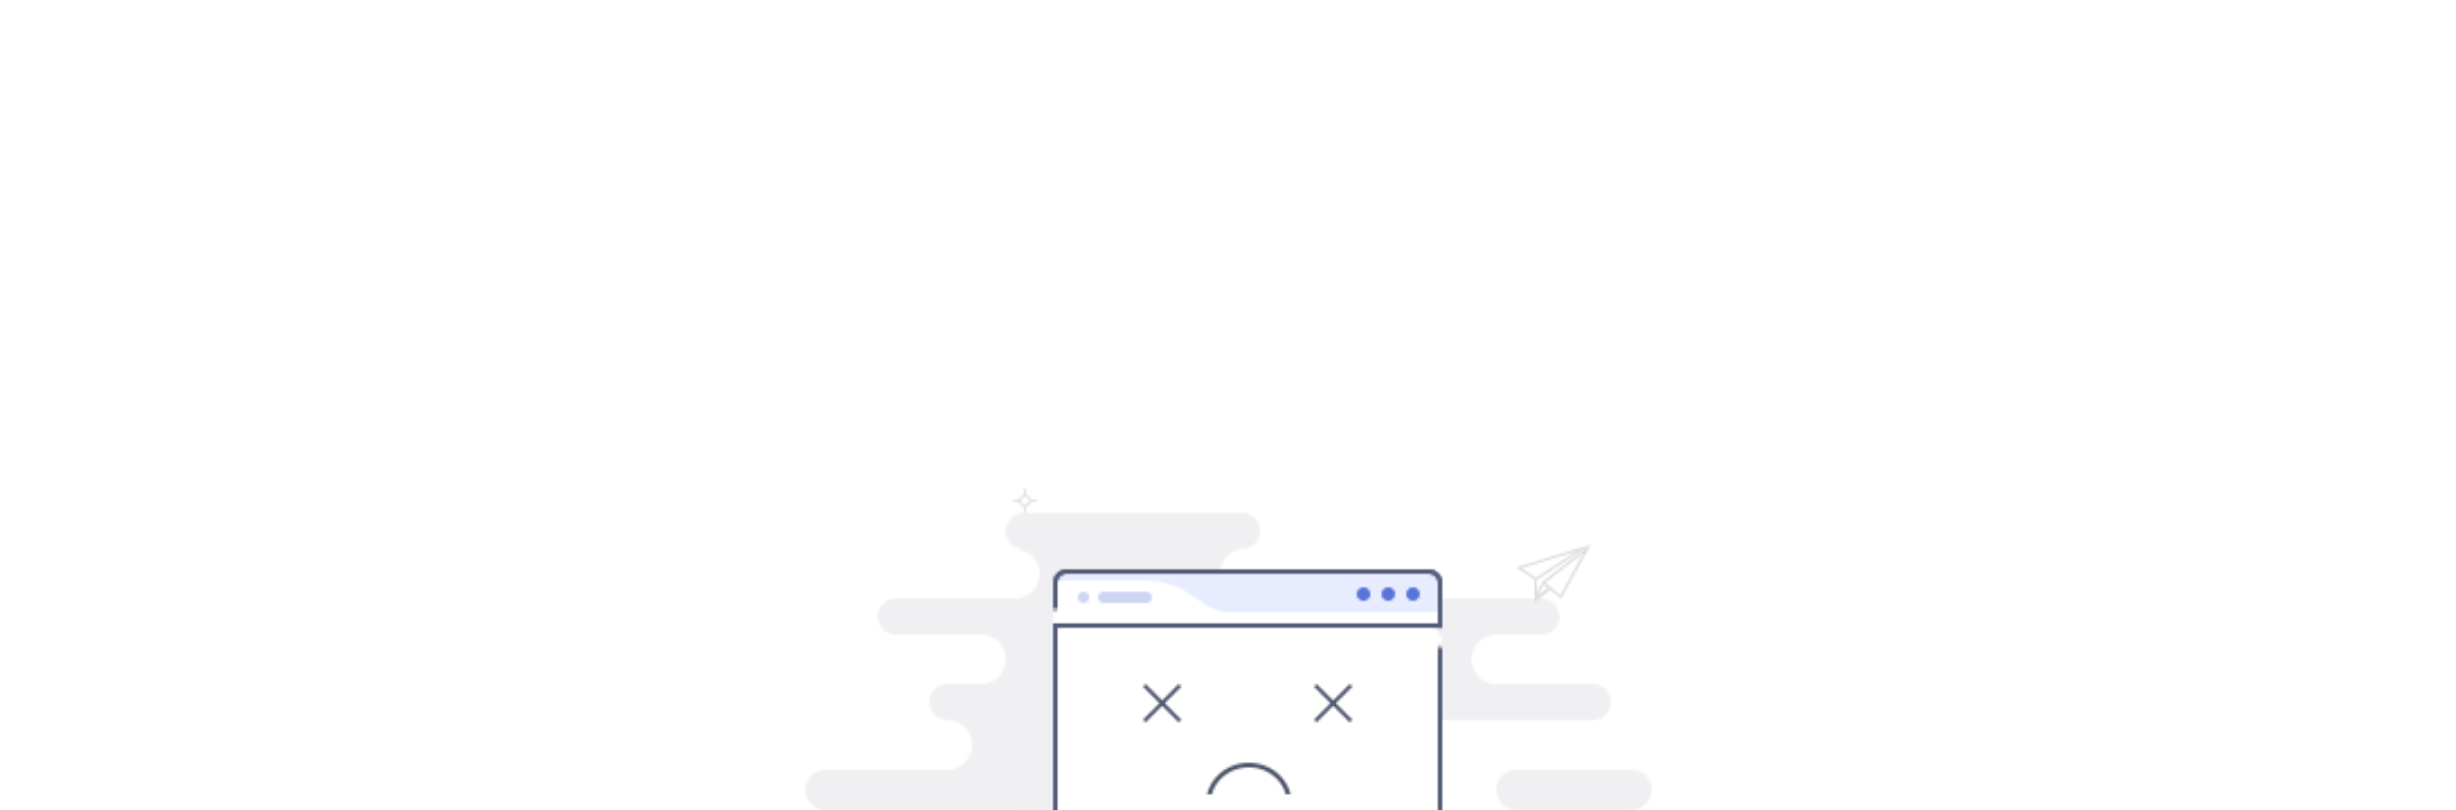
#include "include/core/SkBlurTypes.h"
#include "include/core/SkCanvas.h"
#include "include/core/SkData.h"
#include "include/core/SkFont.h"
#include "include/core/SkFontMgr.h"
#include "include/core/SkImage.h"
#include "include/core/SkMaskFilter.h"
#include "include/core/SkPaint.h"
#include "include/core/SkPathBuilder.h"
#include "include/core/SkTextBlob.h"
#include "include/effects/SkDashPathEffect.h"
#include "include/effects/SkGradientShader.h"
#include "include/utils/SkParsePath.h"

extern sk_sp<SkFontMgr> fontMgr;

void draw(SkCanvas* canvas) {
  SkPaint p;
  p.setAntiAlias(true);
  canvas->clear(SK_ColorWHITE);
  canvas->drawImageRect(SkImages::DeferredFromEncodedData(SkData::MakeFromFileName("images/1.png")), SkRect::MakeLTRB(805, 488, 1652, 810), SkSamplingOptions());
}
